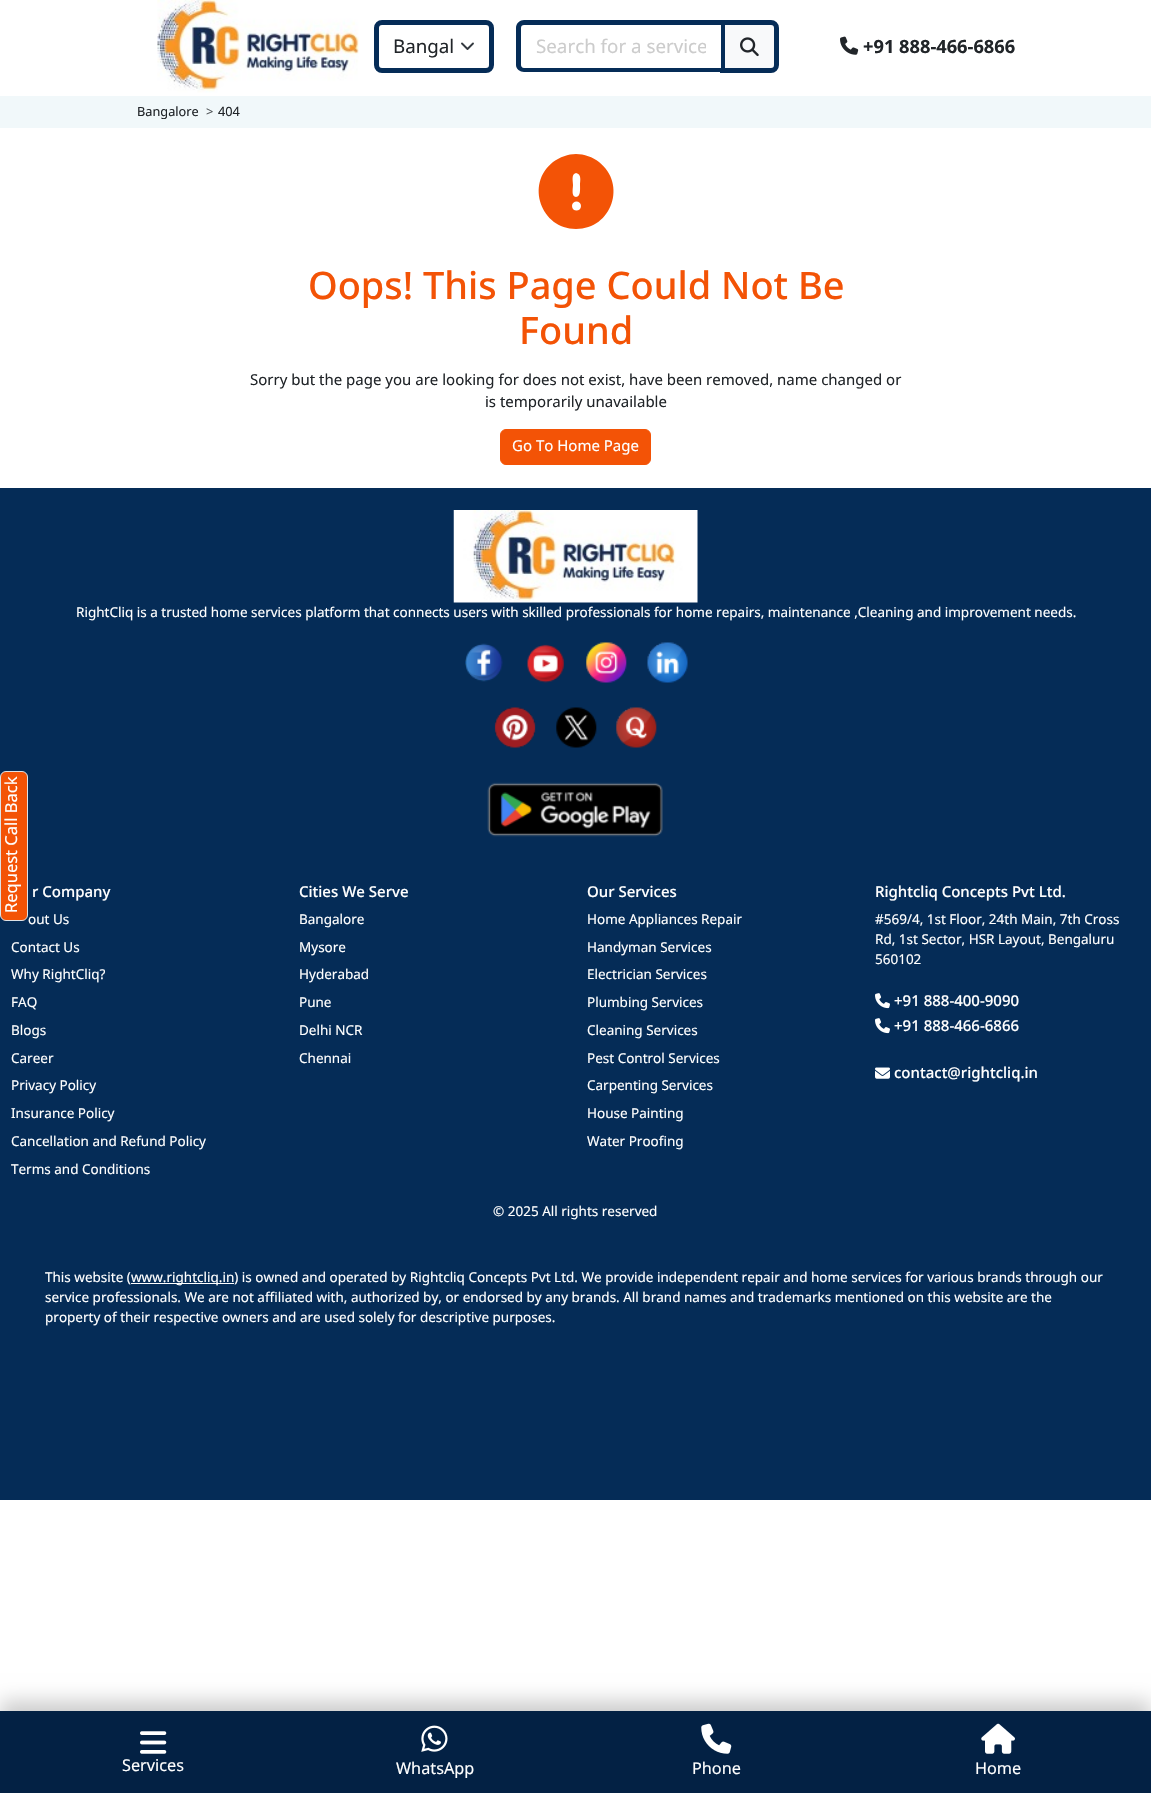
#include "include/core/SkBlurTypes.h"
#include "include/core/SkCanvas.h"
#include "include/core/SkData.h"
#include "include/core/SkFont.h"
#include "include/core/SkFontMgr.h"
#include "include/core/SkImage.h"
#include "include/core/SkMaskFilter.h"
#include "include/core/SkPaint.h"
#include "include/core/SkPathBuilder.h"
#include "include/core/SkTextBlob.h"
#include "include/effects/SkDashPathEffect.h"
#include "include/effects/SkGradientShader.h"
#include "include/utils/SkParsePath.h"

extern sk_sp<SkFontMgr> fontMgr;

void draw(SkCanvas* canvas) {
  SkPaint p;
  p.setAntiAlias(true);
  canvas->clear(SK_ColorWHITE);
  canvas->drawImageRect(SkImages::DeferredFromEncodedData(SkData::MakeFromFileName("images/1.png")), SkRect::MakeLTRB(157, 0, 359, 93), SkSamplingOptions());
  p.setStyle(SkPaint::kStroke_Style);
  p.setStrokeWidth(1.9f);
  p.setStrokeCap(SkPaint::kRound_Cap);
  p.setStrokeJoin(SkPaint::kRound_Join);
  p.setColor(SkColorSetRGB(52, 58, 64));
  canvas->drawPath(SkPathBuilder().moveTo(462, 43.5f).lineTo(467.5f, 49).lineTo(473, 43.5f).detach(), p);
  p.setStrokeWidth(5);
  p.setStrokeCap(SkPaint::kButt_Cap);
  p.setStrokeJoin(SkPaint::kMiter_Join);
  p.setColor(SkColorSetRGB(5, 44, 87));
  canvas->drawRoundRect(SkRect::MakeLTRB(376.5f, 22.5f, 491.5f, 70.5f), 5.5f, 5.5f, p);
  p.setStyle(SkPaint::kFill_Style);
  p.setColor(SkColorSetRGB(248, 249, 250));
  canvas->drawPath(SkPathBuilder().moveTo(722.5f, 22.5f).lineTo(771, 22.5f).cubicTo(774, 22.5f, 776.5f, 25, 776.5f, 28).lineTo(776.5f, 65).cubicTo(776.5f, 68, 774, 70.5f, 771, 70.5f).lineTo(722.5f, 70.5f).close().detach(), p);
  p.setStyle(SkPaint::kStroke_Style);
  p.setColor(SkColorSetRGB(5, 44, 87));
  canvas->drawPath(SkPathBuilder().moveTo(722.5f, 22.5f).lineTo(771, 22.5f).cubicTo(774, 22.5f, 776.5f, 25, 776.5f, 28).lineTo(776.5f, 65).cubicTo(776.5f, 68, 774, 70.5f, 771, 70.5f).lineTo(722.5f, 70.5f).close().detach(), p);
  p.setStyle(SkPaint::kFill_Style);
  p.setColor(SK_ColorWHITE);
  canvas->drawPath(SkPathBuilder().moveTo(523.5f, 25).lineTo(721, 25).lineTo(721, 68).lineTo(523.5f, 68).cubicTo(522, 68, 521, 67, 521, 65.5f).lineTo(521, 27.5f).cubicTo(521, 26, 522, 25, 523.5f, 25).close().detach(), p);
  p.setColor(SkColorSetRGB(5, 44, 87));
  canvas->drawPath(SkPathBuilder(SkPathFillType::kEvenOdd).moveTo(524, 20).lineTo(721, 20).lineTo(721, 72).lineTo(524, 72).cubicTo(520, 72, 516, 69, 516, 65).lineTo(516, 28).cubicTo(516, 23, 520, 20, 524, 20).close().moveTo(524, 25).lineTo(721, 25).lineTo(721, 68).lineTo(524, 68).cubicTo(522, 68, 521, 66, 521, 65).lineTo(521, 28).cubicTo(521, 26, 522, 25, 524, 25).close().detach(), p);
  canvas->drawImageRect(SkImages::DeferredFromEncodedData(SkData::MakeFromFileName("images/2.png")), SkRect::MakeLTRB(740, 37, 759, 57), SkSamplingOptions());
  canvas->drawImageRect(SkImages::DeferredFromEncodedData(SkData::MakeFromFileName("images/3.png")), SkRect::MakeLTRB(840, 36, 859, 55), SkSamplingOptions());
  p.setColor(SkColorSetRGB(241, 248, 250));
  canvas->drawRect(SkRect::MakeLTRB(0, 96, 1151, 128), p);
  p.setColor(SkColorSetRGB(243, 83, 6));
  canvas->drawPath(SkPathBuilder().moveTo(576, 229).cubicTo(612, 229, 627, 184, 599, 162).cubicTo(593, 157, 584, 154, 576, 154).cubicTo(568, 154, 560, 157, 553, 162).cubicTo(525, 184, 541, 229, 576, 229).close().moveTo(576, 173).cubicTo(582, 174, 580, 181, 580, 185).cubicTo(580, 188, 581, 197, 576, 197).cubicTo(571, 197, 573, 188, 573, 185).cubicTo(573, 181, 571, 174, 576, 173).close().moveTo(572, 206).cubicTo(572, 200, 581, 200, 581, 206).cubicTo(581, 212, 572, 212, 572, 206).close().detach(), p);
  canvas->drawRoundRect(SkRect::MakeLTRB(500.5f, 429.5f, 650.5f, 464.5f), 5.5f, 5.5f, p);
  p.setStyle(SkPaint::kStroke_Style);
  p.setStrokeWidth(1);
  canvas->drawRoundRect(SkRect::MakeLTRB(500.5f, 429.5f, 650.5f, 464.5f), 5.5f, 5.5f, p);
  p.setStyle(SkPaint::kFill_Style);
  p.setColor(SkColorSetRGB(5, 44, 87));
  canvas->drawRect(SkRect::MakeLTRB(0, 488, 1151, 1500), p);
  canvas->drawImageRect(SkImages::DeferredFromEncodedData(SkData::MakeFromFileName("images/4.png")), SkRect::MakeLTRB(453, 510, 698, 603), SkSamplingOptions());
  canvas->drawImageRect(SkImages::DeferredFromEncodedData(SkData::MakeFromFileName("images/5.png")), SkRect::MakeLTRB(465, 643, 503, 682), SkSamplingOptions());
  canvas->drawImageRect(SkImages::DeferredFromEncodedData(SkData::MakeFromFileName("images/6.png")), SkRect::MakeLTRB(527, 644, 564, 683), SkSamplingOptions());
  canvas->drawImageRect(SkImages::DeferredFromEncodedData(SkData::MakeFromFileName("images/7.png")), SkRect::MakeLTRB(586, 642, 627, 683), SkSamplingOptions());
  canvas->drawImageRect(SkImages::DeferredFromEncodedData(SkData::MakeFromFileName("images/8.png")), SkRect::MakeLTRB(647, 642, 688, 683), SkSamplingOptions());
  canvas->drawImageRect(SkImages::DeferredFromEncodedData(SkData::MakeFromFileName("images/9.png")), SkRect::MakeLTRB(494, 707, 536, 748), SkSamplingOptions());
  canvas->drawImageRect(SkImages::DeferredFromEncodedData(SkData::MakeFromFileName("images/10.png")), SkRect::MakeLTRB(556, 707, 597, 748), SkSamplingOptions());
  canvas->drawImageRect(SkImages::DeferredFromEncodedData(SkData::MakeFromFileName("images/11.png")), SkRect::MakeLTRB(616, 707, 657, 748), SkSamplingOptions());
  canvas->drawImageRect(SkImages::DeferredFromEncodedData(SkData::MakeFromFileName("images/12.png")), SkRect::MakeLTRB(487, 782, 663, 837), SkSamplingOptions());
  canvas->drawImageRect(SkImages::DeferredFromEncodedData(SkData::MakeFromFileName("images/13.png")), SkRect::MakeLTRB(875, 993, 890, 1009), SkSamplingOptions());
  canvas->drawImageRect(SkImages::DeferredFromEncodedData(SkData::MakeFromFileName("images/13.png")), SkRect::MakeLTRB(875, 1018, 890, 1034), SkSamplingOptions());
  canvas->drawImageRect(SkImages::DeferredFromEncodedData(SkData::MakeFromFileName("images/14.png")), SkRect::MakeLTRB(875, 1067, 890, 1079), SkSamplingOptions());
  p.setColor(SK_ColorWHITE);
  canvas->drawRect(SkRect::MakeLTRB(131, 1283, 234, 1284), p);
  p.setColor(SkColorSetRGB(243, 83, 6));
  canvas->drawRoundRect(SkRect::MakeLTRB(0.5f, 771.5f, 27.5f, 920.5f), 5.5f, 5.5f, p);
  p.setStyle(SkPaint::kStroke_Style);
  p.setColor(SkColorSetRGB(222, 226, 230));
  canvas->drawRoundRect(SkRect::MakeLTRB(0.5f, 771.5f, 27.5f, 920.5f), 5.5f, 5.5f, p);
  p.setStyle(SkPaint::kFill_Style);
  p.setColor(SkColorSetARGB(51, 0, 0, 0));
  p.setMaskFilter(SkMaskFilter::MakeBlur(kNormal_SkBlurStyle, 9.5f));
  canvas->drawRect(SkRect::MakeLTRB(0, 1701, 1151, 1784), p);
  p.setMaskFilter(nullptr);
  p.setColor(SkColorSetRGB(3, 33, 68));
  canvas->drawRect(SkRect::MakeLTRB(0, 1711, 1151, 1793), p);
  canvas->drawImageRect(SkImages::DeferredFromEncodedData(SkData::MakeFromFileName("images/15.png")), SkRect::MakeLTRB(140, 1731, 167, 1754), SkSamplingOptions());
  canvas->drawImageRect(SkImages::DeferredFromEncodedData(SkData::MakeFromFileName("images/16.png")), SkRect::MakeLTRB(421, 1725, 448, 1752), SkSamplingOptions());
  canvas->drawImageRect(SkImages::DeferredFromEncodedData(SkData::MakeFromFileName("images/17.png")), SkRect::MakeLTRB(701, 1723, 732, 1754), SkSamplingOptions());
  canvas->drawImageRect(SkImages::DeferredFromEncodedData(SkData::MakeFromFileName("images/18.png")), SkRect::MakeLTRB(981, 1723, 1015, 1754), SkSamplingOptions());
  SkFont font1(fontMgr->matchFamilyStyle("Noto Sans", SkFontStyle::Normal()), 18.75f);
  font1.setSubpixel(true);
  p.setColor(SkColorSetRGB(33, 37, 41));
  canvas->drawString("Bangal", 393, 53, font1, p);
  canvas->save();
  canvas->clipRect(SkRect::MakeLTRB(536, 34, 706, 59));
  p.setColor(SkColorSetRGB(204, 204, 204));
  canvas->drawString("Search for a service", 536, 53, font1, p);
  canvas->restore();
  SkFont font2(fontMgr->matchFamilyStyle("Noto Sans", SkFontStyle::Bold()), 18.25f);
  font2.setSubpixel(true);
  p.setColor(SkColorSetRGB(33, 37, 41));
  canvas->drawString("+91 888-466-6866", 863, 53, font2, p);
  SkFont font3(fontMgr->matchFamilyStyle("Noto Sans", SkFontStyle::Normal()), 12.75f);
  font3.setSubpixel(true);
  canvas->drawString("Bangalore", 137, 116, font3, p);
  p.setColor(SkColorSetRGB(85, 90, 93));
  canvas->drawString(">", 206, 116, font3, p);
  p.setColor(SkColorSetRGB(33, 37, 41));
  canvas->drawString("404", 218, 116, font3, p);
  SkFont font4(fontMgr->matchFamilyStyle("Noto Sans", SkFontStyle(500, SkFontStyle::kNormal_Width, SkFontStyle::kUpright_Slant)), 37.9f);
  font4.setSubpixel(true);
  p.setColor(SkColorSetRGB(243, 83, 6));
  canvas->drawString("Oops! This Page Could Not Be", 308, 299, font4, p);
  canvas->drawString("Found", 519, 344, font4, p);
  SkFont font5(fontMgr->matchFamilyStyle("Noto Sans", SkFontStyle::Normal()), 15);
  font5.setSubpixel(true);
  p.setColor(SkColorSetRGB(33, 37, 41));
  canvas->drawString("Sorry but the page you are looking for does not exist, have been removed, name changed or", 250, 385, font5, p);
  canvas->drawString("is temporarily unavailable", 485, 407, font5, p);
  p.setColor(SK_ColorWHITE);
  canvas->drawString("Go To Home Page", 512, 451, font5, p);
  SkFont font6(fontMgr->matchFamilyStyle("Noto Sans", SkFontStyle::Normal()), 13.5f);
  font6.setSubpixel(true);
  canvas->drawString("RightCliq is a trusted home services platform that connects users with skilled professionals for home repairs, maintenance ,Cleaning and improvement needs.", 76, 617, font6, p);
  SkFont font7(fontMgr->matchFamilyStyle("Noto Sans", SkFontStyle(500, SkFontStyle::kNormal_Width, SkFontStyle::kUpright_Slant)), 15);
  font7.setSubpixel(true);
  canvas->drawString("r Company", 32, 897, font7, p);
  canvas->drawString("out Us", 28, 924, font6, p);
  canvas->drawString("Contact Us", 11, 952, font6, p);
  canvas->drawString("Why RightCliq?", 11, 979, font6, p);
  canvas->drawString("FAQ", 11, 1007, font6, p);
  canvas->drawString("Blogs", 11, 1035, font6, p);
  canvas->drawString("Career", 11, 1063, font6, p);
  canvas->drawString("Privacy Policy", 11, 1090, font6, p);
  canvas->drawString("Insurance Policy", 11, 1118, font6, p);
  canvas->drawString("Cancellation and Refund Policy", 11, 1146, font6, p);
  canvas->drawString("Terms and Conditions", 11, 1174, font6, p);
  canvas->drawString("Cities We Serve", 299, 897, font7, p);
  canvas->drawString("Bangalore", 299, 924, font6, p);
  canvas->drawString("Mysore", 299, 952, font6, p);
  canvas->drawString("Hyderabad", 299, 979, font6, p);
  canvas->drawString("Pune", 299, 1007, font6, p);
  canvas->drawString("Delhi NCR", 299, 1035, font6, p);
  canvas->drawString("Chennai", 299, 1063, font6, p);
  canvas->drawString("Our Services", 587, 897, font7, p);
  canvas->drawString("Home Appliances Repair", 587, 924, font6, p);
  canvas->drawString("Handyman Services", 587, 952, font6, p);
  canvas->drawString("Electrician Services", 587, 979, font6, p);
  canvas->drawString("Plumbing Services", 587, 1007, font6, p);
  canvas->drawString("Cleaning Services", 587, 1035, font6, p);
  canvas->drawString("Pest Control Services", 587, 1063, font6, p);
  canvas->drawString("Carpenting Services", 587, 1090, font6, p);
  canvas->drawString("House Painting", 587, 1118, font6, p);
  canvas->drawString("Water Proofing", 587, 1146, font6, p);
  canvas->drawString("Rightcliq Concepts Pvt Ltd.", 875, 897, font7, p);
  canvas->drawString("#569/4, 1st Floor, 24th Main, 7th Cross", 875, 924, font6, p);
  canvas->drawString("Rd, 1st Sector, HSR Layout, Bengaluru", 875, 944, font6, p);
  canvas->drawString("560102", 875, 964, font6, p);
  canvas->drawString("+91 888-400-9090", 894, 1006, font7, p);
  canvas->drawString("+91 888-466-6866", 894, 1031, font7, p);
  canvas->drawString("contact@rightcliq.in", 894, 1078, font7, p);
  canvas->drawString("© 2025 All rights reserved", 493, 1216, font6, p);
  canvas->drawString("This website (", 45, 1282, font6, p);
  canvas->drawString("www.rightcliq.in) is owned and operated by Rightcliq Concepts Pvt Ltd. We provide independent repair and home services for various brands through our", 131, 1282, font6, p);
  canvas->drawString("service professionals. We are not affiliated with, authorized by, or endorsed by any brands. All brand names and trademarks mentioned on this website are the", 45, 1302, font6, p);
  canvas->drawString("property of their respective owners and are used solely for descriptive purposes.", 45, 1322, font6, p);
  SkFont font8(fontMgr->matchFamilyStyle("Noto Sans", SkFontStyle::Normal()), 16.5f);
  font8.setSubpixel(true);
  canvas->save();
  canvas->rotate(-90, 17, 913);
  canvas->drawString("Request Call Back", 17, 913, font8, p);
  canvas->restore();
  SkFont font9(fontMgr->matchFamilyStyle("Noto Sans", SkFontStyle::Normal()), 16.25f);
  font9.setSubpixel(true);
  canvas->drawString("Services", 122, 1771, font9, p);
  canvas->drawString("WhatsApp", 396, 1774, font9, p);
  canvas->drawString("Phone", 692, 1774, font9, p);
  canvas->drawString("Home", 975, 1774, font9, p);
}
